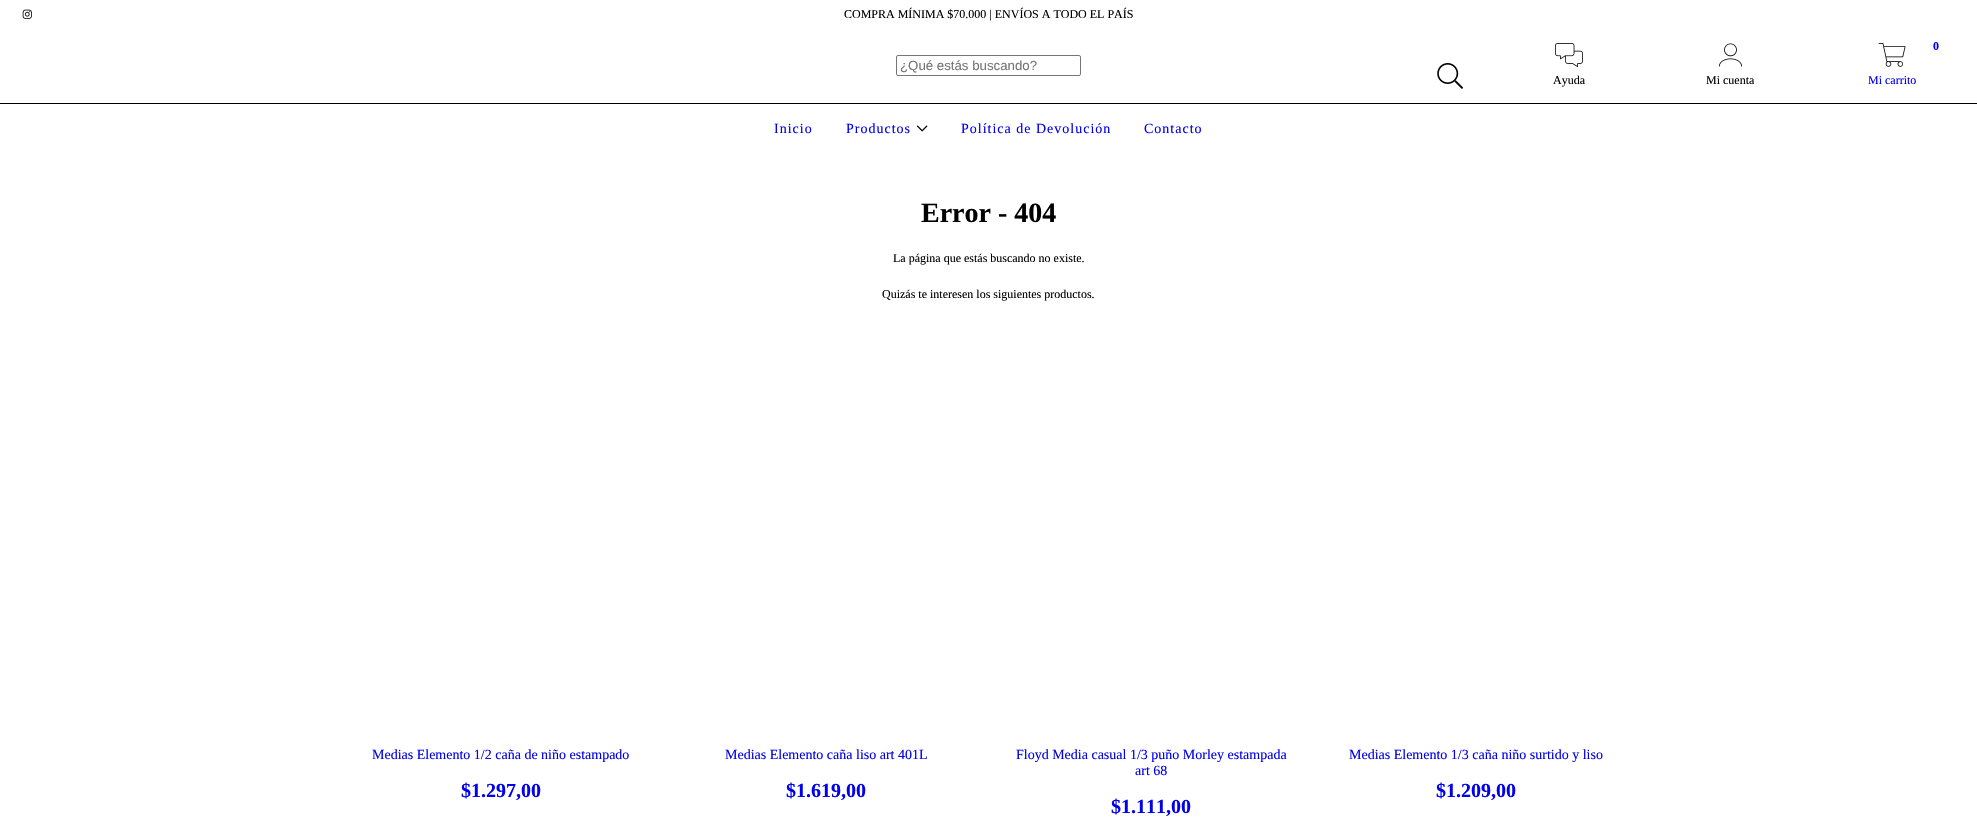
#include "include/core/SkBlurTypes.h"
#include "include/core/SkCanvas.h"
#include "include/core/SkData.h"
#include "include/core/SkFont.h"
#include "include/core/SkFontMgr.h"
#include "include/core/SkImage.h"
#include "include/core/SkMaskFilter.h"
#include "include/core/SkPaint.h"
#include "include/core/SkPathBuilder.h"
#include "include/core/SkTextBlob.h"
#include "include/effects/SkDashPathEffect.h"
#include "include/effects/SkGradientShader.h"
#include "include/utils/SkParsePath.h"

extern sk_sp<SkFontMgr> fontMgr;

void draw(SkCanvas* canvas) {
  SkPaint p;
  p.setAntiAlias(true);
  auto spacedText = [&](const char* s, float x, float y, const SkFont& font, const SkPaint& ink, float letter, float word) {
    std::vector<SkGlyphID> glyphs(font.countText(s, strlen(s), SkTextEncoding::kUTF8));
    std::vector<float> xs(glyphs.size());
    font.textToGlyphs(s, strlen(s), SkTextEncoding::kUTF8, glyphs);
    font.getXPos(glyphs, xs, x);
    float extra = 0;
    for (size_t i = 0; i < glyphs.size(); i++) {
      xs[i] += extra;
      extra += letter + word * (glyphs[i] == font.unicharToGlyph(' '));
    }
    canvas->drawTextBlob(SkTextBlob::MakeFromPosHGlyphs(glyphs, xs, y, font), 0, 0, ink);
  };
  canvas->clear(SK_ColorWHITE);
  canvas->drawImageRect(SkImages::DeferredFromEncodedData(SkData::MakeFromFileName("images/1.png")), SkRect::MakeLTRB(22, 9, 32, 19), SkSamplingOptions());
  p.setStyle(SkPaint::kStroke_Style);
  p.setStrokeWidth(1);
  p.setColor(SkColorSetRGB(118, 118, 118));
  canvas->drawRoundRect(SkRect::MakeLTRB(896.5f, 55.5f, 1080.5f, 75.5f), 1.5f, 1.5f, p);
  canvas->drawImageRect(SkImages::DeferredFromEncodedData(SkData::MakeFromFileName("images/2.png")), SkRect::MakeLTRB(1437, 63, 1463, 89), SkSamplingOptions());
  canvas->drawImageRect(SkImages::DeferredFromEncodedData(SkData::MakeFromFileName("images/3.png")), SkRect::MakeLTRB(1555, 43, 1583, 67), SkSamplingOptions());
  canvas->drawImageRect(SkImages::DeferredFromEncodedData(SkData::MakeFromFileName("images/4.png")), SkRect::MakeLTRB(1718, 43, 1743, 67), SkSamplingOptions());
  canvas->drawImageRect(SkImages::DeferredFromEncodedData(SkData::MakeFromFileName("images/5.png")), SkRect::MakeLTRB(1878, 43, 1906, 67), SkSamplingOptions());
  p.setStyle(SkPaint::kFill_Style);
  p.setColor(SK_ColorBLACK);
  canvas->drawRect(SkRect::MakeLTRB(0, 103, 1977, 104), p);
  canvas->drawImageRect(SkImages::DeferredFromEncodedData(SkData::MakeFromFileName("images/6.png")), SkRect::MakeLTRB(916, 125, 928, 132), SkSamplingOptions());
  SkFont font1(fontMgr->matchFamilyStyle("Liberation Serif", SkFontStyle::Normal()), 12);
  font1.setSubpixel(true);
  canvas->drawString("COMPRA MÍNIMA $70.000 | ENVÍOS A TODO EL PAÍS", 844, 18, font1, p);
  SkFont font2(fontMgr->matchFamilyStyle("Liberation Sans", SkFontStyle::Normal()), 13.25f);
  font2.setSubpixel(true);
  p.setColor(SkColorSetRGB(117, 117, 117));
  canvas->drawString("¿Qué estás buscando?", 900, 70, font2, p);
  p.setColor(SK_ColorBLACK);
  canvas->drawString("Ayuda", 1553, 84, font1, p);
  canvas->drawString("Mi cuenta", 1706, 84, font1, p);
  SkFont font3(fontMgr->matchFamilyStyle("Liberation Serif", SkFontStyle::Bold()), 12);
  font3.setSubpixel(true);
  p.setColor(SkColorSetRGB(0, 0, 238));
  canvas->drawString("0", 1933, 50, font3, p);
  canvas->drawString("Mi carrito", 1868, 84, font1, p);
  SkFont font4(fontMgr->matchFamilyStyle("Liberation Serif", SkFontStyle::Normal()), 14);
  font4.setSubpixel(true);
  spacedText("Inicio", 774, 133, font4, p, 1, 0);
  spacedText("Productos", 846, 133, font4, p, 1, 0);
  spacedText("Política de Devolución", 961, 133, font4, p, 1, 0);
  spacedText("Contacto", 1144, 133, font4, p, 1, 0);
  SkFont font5(fontMgr->matchFamilyStyle("Liberation Serif", SkFontStyle::Bold()), 28);
  font5.setSubpixel(true);
  p.setColor(SK_ColorBLACK);
  canvas->drawString("Error - 404", 921, 222, font5, p);
  canvas->drawString("La página que estás buscando no existe.", 893, 262, font1, p);
  canvas->drawString("Quizás te interesen los siguientes productos.", 882, 298, font1, p);
  p.setColor(SkColorSetRGB(0, 0, 238));
  canvas->drawString("Medias Elemento 1/2 caña de niño estampado", 372, 759, font4, p);
  SkFont font6(fontMgr->matchFamilyStyle("Liberation Serif", SkFontStyle::Bold()), 20);
  font6.setSubpixel(true);
  canvas->drawString("$1.297,00", 461, 797, font6, p);
  canvas->drawString("Medias Elemento caña liso art 401L", 725, 759, font4, p);
  canvas->drawString("$1.619,00", 786, 797, font6, p);
  canvas->drawString("Floyd Media casual 1/3 puño Morley estampada", 1016, 759, font4, p);
  canvas->drawString("art 68", 1135, 775, font4, p);
  canvas->drawString("$1.111,00", 1111, 813, font6, p);
  canvas->drawString("Medias Elemento 1/3 caña niño surtido y liso", 1349, 759, font4, p);
  canvas->drawString("$1.209,00", 1436, 797, font6, p);
}
